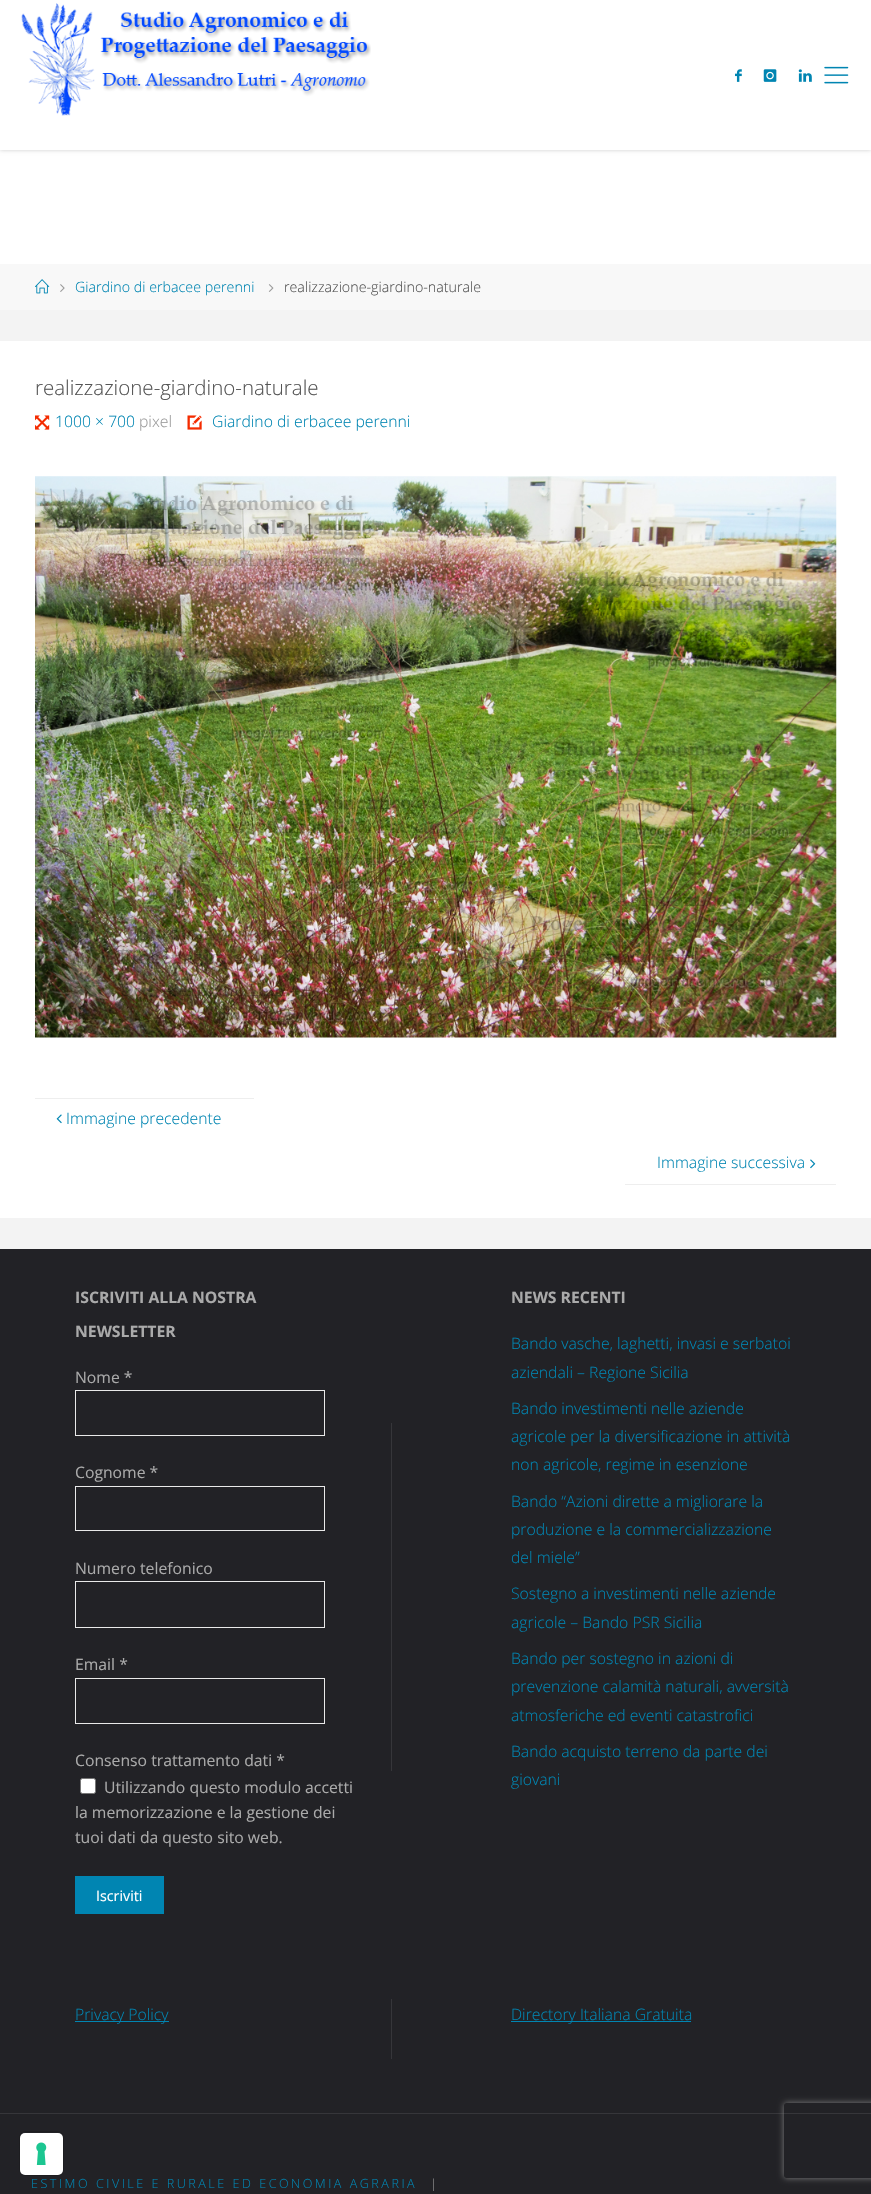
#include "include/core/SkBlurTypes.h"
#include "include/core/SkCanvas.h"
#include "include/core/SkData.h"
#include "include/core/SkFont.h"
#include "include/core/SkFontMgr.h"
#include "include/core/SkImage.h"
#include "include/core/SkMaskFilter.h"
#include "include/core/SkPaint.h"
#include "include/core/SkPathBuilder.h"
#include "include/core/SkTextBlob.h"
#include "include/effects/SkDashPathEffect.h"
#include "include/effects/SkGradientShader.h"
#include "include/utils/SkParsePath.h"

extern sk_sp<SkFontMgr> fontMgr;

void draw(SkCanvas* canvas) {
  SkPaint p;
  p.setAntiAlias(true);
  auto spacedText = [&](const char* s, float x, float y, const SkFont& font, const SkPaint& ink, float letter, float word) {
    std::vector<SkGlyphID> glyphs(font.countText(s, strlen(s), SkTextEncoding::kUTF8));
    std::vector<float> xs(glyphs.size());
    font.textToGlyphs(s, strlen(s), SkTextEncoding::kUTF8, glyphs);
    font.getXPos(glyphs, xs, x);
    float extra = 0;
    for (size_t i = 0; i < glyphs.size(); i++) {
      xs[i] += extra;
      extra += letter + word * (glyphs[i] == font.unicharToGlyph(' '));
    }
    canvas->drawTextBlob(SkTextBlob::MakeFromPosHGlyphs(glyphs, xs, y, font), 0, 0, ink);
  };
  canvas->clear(SkColorSetRGB(243, 243, 243));
  p.setColor(SK_ColorWHITE);
  canvas->drawRect(SkRect::MakeLTRB(0, 150, 871, 264), p);
  p.setColor(SkColorSetARGB(51, 0, 0, 0));
  p.setMaskFilter(SkMaskFilter::MakeBlur(kNormal_SkBlurStyle, 2));
  canvas->drawRect(SkRect::MakeLTRB(0, 0, 871, 150), p);
  p.setMaskFilter(nullptr);
  p.setColor(SK_ColorWHITE);
  canvas->drawRect(SkRect::MakeLTRB(0, 0, 871, 150), p);
  canvas->drawImageRect(SkImages::DeferredFromEncodedData(SkData::MakeFromFileName("images/1.png")), SkRect::MakeLTRB(21, 3, 371, 116), SkSamplingOptions());
  canvas->drawImageRect(SkImages::DeferredFromEncodedData(SkData::MakeFromFileName("images/2.png")), SkRect::MakeLTRB(735, 69, 742, 82), SkSamplingOptions());
  canvas->drawImageRect(SkImages::DeferredFromEncodedData(SkData::MakeFromFileName("images/3.png")), SkRect::MakeLTRB(763, 69, 777, 82), SkSamplingOptions());
  canvas->drawImageRect(SkImages::DeferredFromEncodedData(SkData::MakeFromFileName("images/4.png")), SkRect::MakeLTRB(798, 69, 812, 82), SkSamplingOptions());
  canvas->drawImageRect(SkImages::DeferredFromEncodedData(SkData::MakeFromFileName("images/5.png")), SkRect::MakeLTRB(824, 66, 849, 84), SkSamplingOptions());
  p.setColor(SkColorSetRGB(248, 248, 248));
  canvas->drawRect(SkRect::MakeLTRB(0, 264, 871, 310), p);
  canvas->drawImageRect(SkImages::DeferredFromEncodedData(SkData::MakeFromFileName("images/6.png")), SkRect::MakeLTRB(35, 279, 50, 294), SkSamplingOptions());
  canvas->drawImageRect(SkImages::DeferredFromEncodedData(SkData::MakeFromFileName("images/7.png")), SkRect::MakeLTRB(60, 284, 65, 292), SkSamplingOptions());
  canvas->drawImageRect(SkImages::DeferredFromEncodedData(SkData::MakeFromFileName("images/8.png")), SkRect::MakeLTRB(268, 284, 274, 292), SkSamplingOptions());
  p.setColor(SK_ColorWHITE);
  canvas->drawRect(SkRect::MakeLTRB(0, 341, 871, 1218), p);
  canvas->drawImageRect(SkImages::DeferredFromEncodedData(SkData::MakeFromFileName("images/9.png")), SkRect::MakeLTRB(35, 415, 50, 430), SkSamplingOptions());
  canvas->drawImageRect(SkImages::DeferredFromEncodedData(SkData::MakeFromFileName("images/10.png")), SkRect::MakeLTRB(187, 415, 202, 430), SkSamplingOptions());
  canvas->drawImageRect(SkImages::DeferredFromEncodedData(SkData::MakeFromFileName("images/11.png")), SkRect::MakeLTRB(35, 476, 837, 1038), SkSamplingOptions());
  p.setColor(SkColorSetRGB(238, 238, 238));
  canvas->drawRect(SkRect::MakeLTRB(35, 1098, 254, 1099), p);
  canvas->drawImageRect(SkImages::DeferredFromEncodedData(SkData::MakeFromFileName("images/12.png")), SkRect::MakeLTRB(56, 1114, 62, 1124), SkSamplingOptions());
  canvas->drawImageRect(SkImages::DeferredFromEncodedData(SkData::MakeFromFileName("images/13.png")), SkRect::MakeLTRB(810, 1159, 816, 1169), SkSamplingOptions());
  canvas->drawRect(SkRect::MakeLTRB(625, 1184, 836, 1185), p);
  p.setColor(SkColorSetRGB(34, 34, 38));
  canvas->drawRect(SkRect::MakeLTRB(0, 1249, 871, 2113), p);
  p.setStyle(SkPaint::kStroke_Style);
  p.setStrokeWidth(1);
  p.setColor(SkColorSetRGB(233, 233, 233));
  canvas->drawRect(SkRect::MakeLTRB(75.5f, 1390.5f, 324.5f, 1435.5f), p);
  canvas->drawRect(SkRect::MakeLTRB(75.5f, 1486.5f, 324.5f, 1530.5f), p);
  canvas->drawRect(SkRect::MakeLTRB(75.5f, 1581.5f, 324.5f, 1627.5f), p);
  canvas->drawRect(SkRect::MakeLTRB(75.5f, 1678.5f, 324.5f, 1723.5f), p);
  p.setStyle(SkPaint::kFill_Style);
  p.setColor(SK_ColorWHITE);
  canvas->drawRoundRect(SkRect::MakeLTRB(80.5f, 1778.5f, 95.5f, 1793.5f), 2, 2, p);
  p.setStyle(SkPaint::kStroke_Style);
  p.setColor(SkColorSetRGB(118, 118, 118));
  canvas->drawRoundRect(SkRect::MakeLTRB(80.5f, 1778.5f, 95.5f, 1793.5f), 2, 2, p);
  p.setStyle(SkPaint::kFill_Style);
  p.setColor(SkColorSetRGB(0, 133, 178));
  canvas->drawRect(SkRect::MakeLTRB(75, 1876, 164, 1914), p);
  p.setColor(SkColorSetRGB(54, 54, 58));
  canvas->drawRect(SkRect::MakeLTRB(391, 1423, 392, 1771), p);
  p.setColor(SkColorSetRGB(0, 133, 178));
  canvas->drawRect(SkRect::MakeLTRB(75, 2021, 169, 2022), p);
  p.setColor(SkColorSetRGB(54, 54, 58));
  canvas->drawRect(SkRect::MakeLTRB(391, 1999, 392, 2059), p);
  p.setColor(SkColorSetRGB(0, 133, 178));
  canvas->drawRect(SkRect::MakeLTRB(511, 2021, 691, 2022), p);
  p.setColor(SkColorSetRGB(34, 34, 38));
  canvas->drawRect(SkRect::MakeLTRB(0, 2114, 871, 2194), p);
  p.setColor(SkColorSetRGB(54, 54, 58));
  canvas->drawRect(SkRect::MakeLTRB(0, 2113, 871, 2114), p);
  canvas->save();
  canvas->clipPath(SkPathBuilder(SkPathFillType::kEvenOdd).moveTo(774, 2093).lineTo(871, 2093).lineTo(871, 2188).lineTo(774, 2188).close().moveTo(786.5f, 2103).lineTo(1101.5f, 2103).cubicTo(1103, 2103, 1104, 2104, 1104, 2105.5f).lineTo(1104, 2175.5f).cubicTo(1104, 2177, 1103, 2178, 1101.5f, 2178).lineTo(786.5f, 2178).cubicTo(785, 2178, 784, 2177, 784, 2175.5f).lineTo(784, 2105.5f).cubicTo(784, 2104, 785, 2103, 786.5f, 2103).close().detach(), true);
  p.setColor(SkColorSetRGB(128, 128, 128));
  p.setMaskFilter(SkMaskFilter::MakeBlur(kNormal_SkBlurStyle, 3));
  canvas->drawRoundRect(SkRect::MakeLTRB(784, 2103, 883, 2178), 2.5f, 2.5f, p);
  p.setMaskFilter(nullptr);
  canvas->restore();
  p.setStyle(SkPaint::kStroke_Style);
  p.setColor(SkColorSetRGB(29, 29, 32));
  canvas->drawRoundRect(SkRect::MakeLTRB(19.5f, 2131.5f, 63.5f, 2175.5f), 5.5f, 5.5f, p);
  p.setStyle(SkPaint::kFill_Style);
  p.setColor(SK_ColorWHITE);
  canvas->drawRoundRect(SkRect::MakeLTRB(20, 2133, 63, 2175), 5, 5, p);
  canvas->drawImageRect(SkImages::DeferredFromEncodedData(SkData::MakeFromFileName("images/14.png")), SkRect::MakeLTRB(36, 2142, 47, 2165), SkSamplingOptions());
  SkFont font1(fontMgr->matchFamilyStyle("Open Sans", SkFontStyle(300, SkFontStyle::kNormal_Width, SkFontStyle::kUpright_Slant)), 14.25f);
  font1.setSubpixel(true);
  p.setColor(SkColorSetRGB(0, 133, 178));
  canvas->drawString("Giardino di erbacee perenni", 75, 292, font1, p);
  p.setColor(SkColorSetRGB(85, 85, 85));
  canvas->drawString("realizzazione-giardino-naturale", 284, 292, font1, p);
  SkFont font2(fontMgr->matchFamilyStyle("Open Sans", SkFontStyle(300, SkFontStyle::kNormal_Width, SkFontStyle::kUpright_Slant)), 20.5f);
  font2.setSubpixel(true);
  canvas->drawString("realizzazione-giardino-naturale", 35, 395, font2, p);
  SkFont font3(fontMgr->matchFamilyStyle("Open Sans", SkFontStyle(300, SkFontStyle::kNormal_Width, SkFontStyle::kUpright_Slant)), 15.75f);
  font3.setSubpixel(true);
  p.setColor(SkColorSetRGB(0, 133, 178));
  canvas->drawString("1000 × 700", 55, 427, font3, p);
  p.setColor(SkColorSetRGB(154, 154, 154));
  canvas->drawString("pixel", 139, 427, font3, p);
  p.setColor(SkColorSetRGB(0, 133, 178));
  canvas->drawString("Giardino di erbacee perenni", 212, 427, font3, p);
  canvas->drawString("Immagine precedente", 66, 1124, font3, p);
  canvas->drawString("Immagine successiva", 657, 1168, font3, p);
  SkFont font4(fontMgr->matchFamilyStyle("Open Sans", SkFontStyle::Bold()), 15.75f);
  font4.setSubpixel(true);
  p.setColor(SkColorSetRGB(170, 170, 170));
  canvas->drawString("ISCRIVITI ALLA NOSTRA", 75, 1303, font4, p);
  canvas->drawString("NEWSLETTER", 75, 1337, font4, p);
  SkFont font5(fontMgr->matchFamilyStyle("Open Sans", SkFontStyle::Normal()), 15.75f);
  font5.setSubpixel(true);
  canvas->drawString("Nome *", 75, 1383, font5, p);
  canvas->drawString("Cognome *", 75, 1478, font5, p);
  canvas->drawString("Numero telefonico", 75, 1574, font5, p);
  canvas->drawString("Email *", 75, 1670, font5, p);
  canvas->drawString("Consenso trattamento dati *", 75, 1766, font5, p);
  canvas->drawString("Utilizzando questo modulo accetti", 104, 1793, font5, p);
  canvas->drawString("la memorizzazione e la gestione dei", 75, 1818, font5, p);
  canvas->drawString("tuoi dati da questo sito web.", 75, 1843, font5, p);
  SkFont font6(fontMgr->matchFamilyStyle("Open Sans", SkFontStyle::Normal()), 14.25f);
  font6.setSubpixel(true);
  p.setColor(SK_ColorWHITE);
  canvas->drawString("Iscriviti", 96, 1901, font6, p);
  p.setColor(SkColorSetRGB(170, 170, 170));
  canvas->drawString("NEWS RECENTI", 511, 1303, font4, p);
  p.setColor(SkColorSetRGB(0, 133, 178));
  canvas->drawString("Bando vasche, laghetti, invasi e serbatoi", 511, 1349, font3, p);
  canvas->drawString("aziendali – Regione Sicilia", 511, 1378, font3, p);
  canvas->drawString("Bando investimenti nelle aziende", 511, 1414, font3, p);
  canvas->drawString("agricole per la diversificazione in attività", 511, 1442, font3, p);
  canvas->drawString("non agricole, regime in esenzione", 511, 1470, font3, p);
  canvas->drawString("Bando “Azioni dirette a migliorare la", 511, 1507, font3, p);
  canvas->drawString("produzione e la commercializzazione", 511, 1535, font3, p);
  canvas->drawString("del miele”", 511, 1563, font3, p);
  canvas->drawString("Sostegno a investimenti nelle aziende", 511, 1599, font3, p);
  canvas->drawString("agricole – Bando PSR Sicilia", 511, 1628, font3, p);
  canvas->drawString("Bando per sostegno in azioni di", 511, 1664, font3, p);
  canvas->drawString("prevenzione calamità naturali, avversità", 511, 1692, font3, p);
  canvas->drawString("atmosferiche ed eventi catastrofici", 511, 1721, font3, p);
  canvas->drawString("Bando acquisto terreno da parte dei", 511, 1757, font3, p);
  canvas->drawString("giovani", 511, 1785, font3, p);
  canvas->drawString("Privacy Policy", 75, 2020, font3, p);
  canvas->drawString("Directory Italiana Gratuita", 511, 2020, font3, p);
  SkFont font7(fontMgr->matchFamilyStyle("Open Sans", SkFontStyle(300, SkFontStyle::kNormal_Width, SkFontStyle::kUpright_Slant)), 12.6f);
  font7.setSubpixel(true);
  spacedText("ESTIMO CIVILE E RURALE ED ECONOMIA AGRARIA", 31, 2188, font7, p, 2.5f, 0);
  p.setColor(SkColorSetRGB(154, 154, 154));
  spacedText("|", 430, 2188, font7, p, 2.5f, 0);
}
